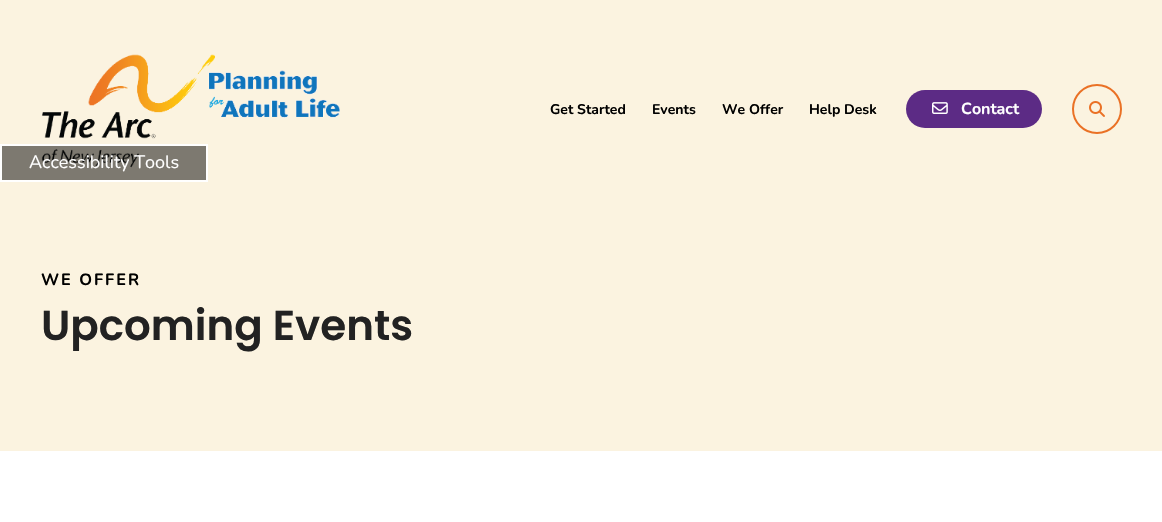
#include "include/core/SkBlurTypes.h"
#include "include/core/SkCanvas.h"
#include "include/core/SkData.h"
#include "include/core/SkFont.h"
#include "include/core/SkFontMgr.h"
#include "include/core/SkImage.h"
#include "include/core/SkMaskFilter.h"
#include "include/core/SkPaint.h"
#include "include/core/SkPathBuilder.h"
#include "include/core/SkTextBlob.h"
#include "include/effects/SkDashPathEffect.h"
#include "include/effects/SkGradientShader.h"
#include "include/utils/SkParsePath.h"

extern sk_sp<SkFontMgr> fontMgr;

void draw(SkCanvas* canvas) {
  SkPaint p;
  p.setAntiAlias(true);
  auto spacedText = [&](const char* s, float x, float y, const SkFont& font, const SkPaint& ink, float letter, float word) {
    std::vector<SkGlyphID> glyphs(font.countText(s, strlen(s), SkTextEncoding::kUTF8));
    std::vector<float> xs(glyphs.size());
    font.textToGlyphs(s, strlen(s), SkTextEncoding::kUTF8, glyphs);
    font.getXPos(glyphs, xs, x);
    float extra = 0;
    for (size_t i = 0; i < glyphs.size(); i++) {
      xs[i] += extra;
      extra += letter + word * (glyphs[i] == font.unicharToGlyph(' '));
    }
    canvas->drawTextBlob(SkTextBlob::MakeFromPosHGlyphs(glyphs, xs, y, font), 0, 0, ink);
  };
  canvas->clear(SK_ColorWHITE);
  p.setColor(SkColorSetRGB(251, 243, 224));
  canvas->drawRect(SkRect::MakeLTRB(0, 0, 1162, 451), p);
  p.setColor(SkColorSetRGB(92, 43, 133));
  canvas->drawRoundRect(SkRect::MakeLTRB(906, 90, 1042, 128), 19, 19, p);
  canvas->drawImageRect(SkImages::DeferredFromEncodedData(SkData::MakeFromFileName("images/1.png")), SkRect::MakeLTRB(932, 102, 948, 114), SkSamplingOptions());
  p.setStyle(SkPaint::kStroke_Style);
  p.setStrokeWidth(2);
  p.setColor(SkColorSetRGB(234, 113, 37));
  canvas->drawCircle(1097, 109, 24, p);
  canvas->drawImageRect(SkImages::DeferredFromEncodedData(SkData::MakeFromFileName("images/2.png")), SkRect::MakeLTRB(1089, 101, 1105, 117), SkSamplingOptions());
  canvas->drawImageRect(SkImages::DeferredFromEncodedData(SkData::MakeFromFileName("images/3.png")), SkRect::MakeLTRB(41, 54, 340, 168), SkSamplingOptions());
  p.setStyle(SkPaint::kFill_Style);
  p.setColor(SkColorSetARGB(128, 0, 0, 0));
  canvas->drawRect(SkRect::MakeLTRB(1, 145, 207, 181), p);
  p.setStyle(SkPaint::kStroke_Style);
  p.setColor(SK_ColorWHITE);
  canvas->drawRect(SkRect::MakeLTRB(1, 145, 207, 181), p);
  SkFont font1(fontMgr->matchFamilyStyle("Nunito", SkFontStyle::Bold()), 14);
  font1.setSubpixel(true);
  p.setStyle(SkPaint::kFill_Style);
  p.setColor(SK_ColorBLACK);
  canvas->drawString("Get Started", 550, 114, font1, p);
  canvas->drawString("Events", 652, 114, font1, p);
  canvas->drawString("We Offer", 722, 114, font1, p);
  canvas->drawString("Help Desk", 809, 114, font1, p);
  SkFont font2(fontMgr->matchFamilyStyle("Nunito", SkFontStyle::Bold()), 16);
  font2.setSubpixel(true);
  p.setColor(SK_ColorWHITE);
  canvas->drawString("Contact", 961, 114, font2, p);
  SkFont font3(fontMgr->matchFamilyStyle("Nunito", SkFontStyle::Normal()), 18);
  font3.setSubpixel(true);
  canvas->drawString("Accessibility Tools", 29, 168, font3, p);
  SkFont font4(fontMgr->matchFamilyStyle("Nunito", SkFontStyle::Bold()), 16.25f);
  font4.setSubpixel(true);
  p.setColor(SK_ColorBLACK);
  spacedText("WE OFFER", 41, 285, font4, p, 2, 0);
  SkFont font5(fontMgr->matchFamilyStyle("Poppins", SkFontStyle(600, SkFontStyle::kNormal_Width, SkFontStyle::kUpright_Slant)), 42);
  font5.setSubpixel(true);
  p.setColor(SkColorSetRGB(34, 34, 34));
  canvas->drawString("Upcoming Events", 41, 340, font5, p);
}
